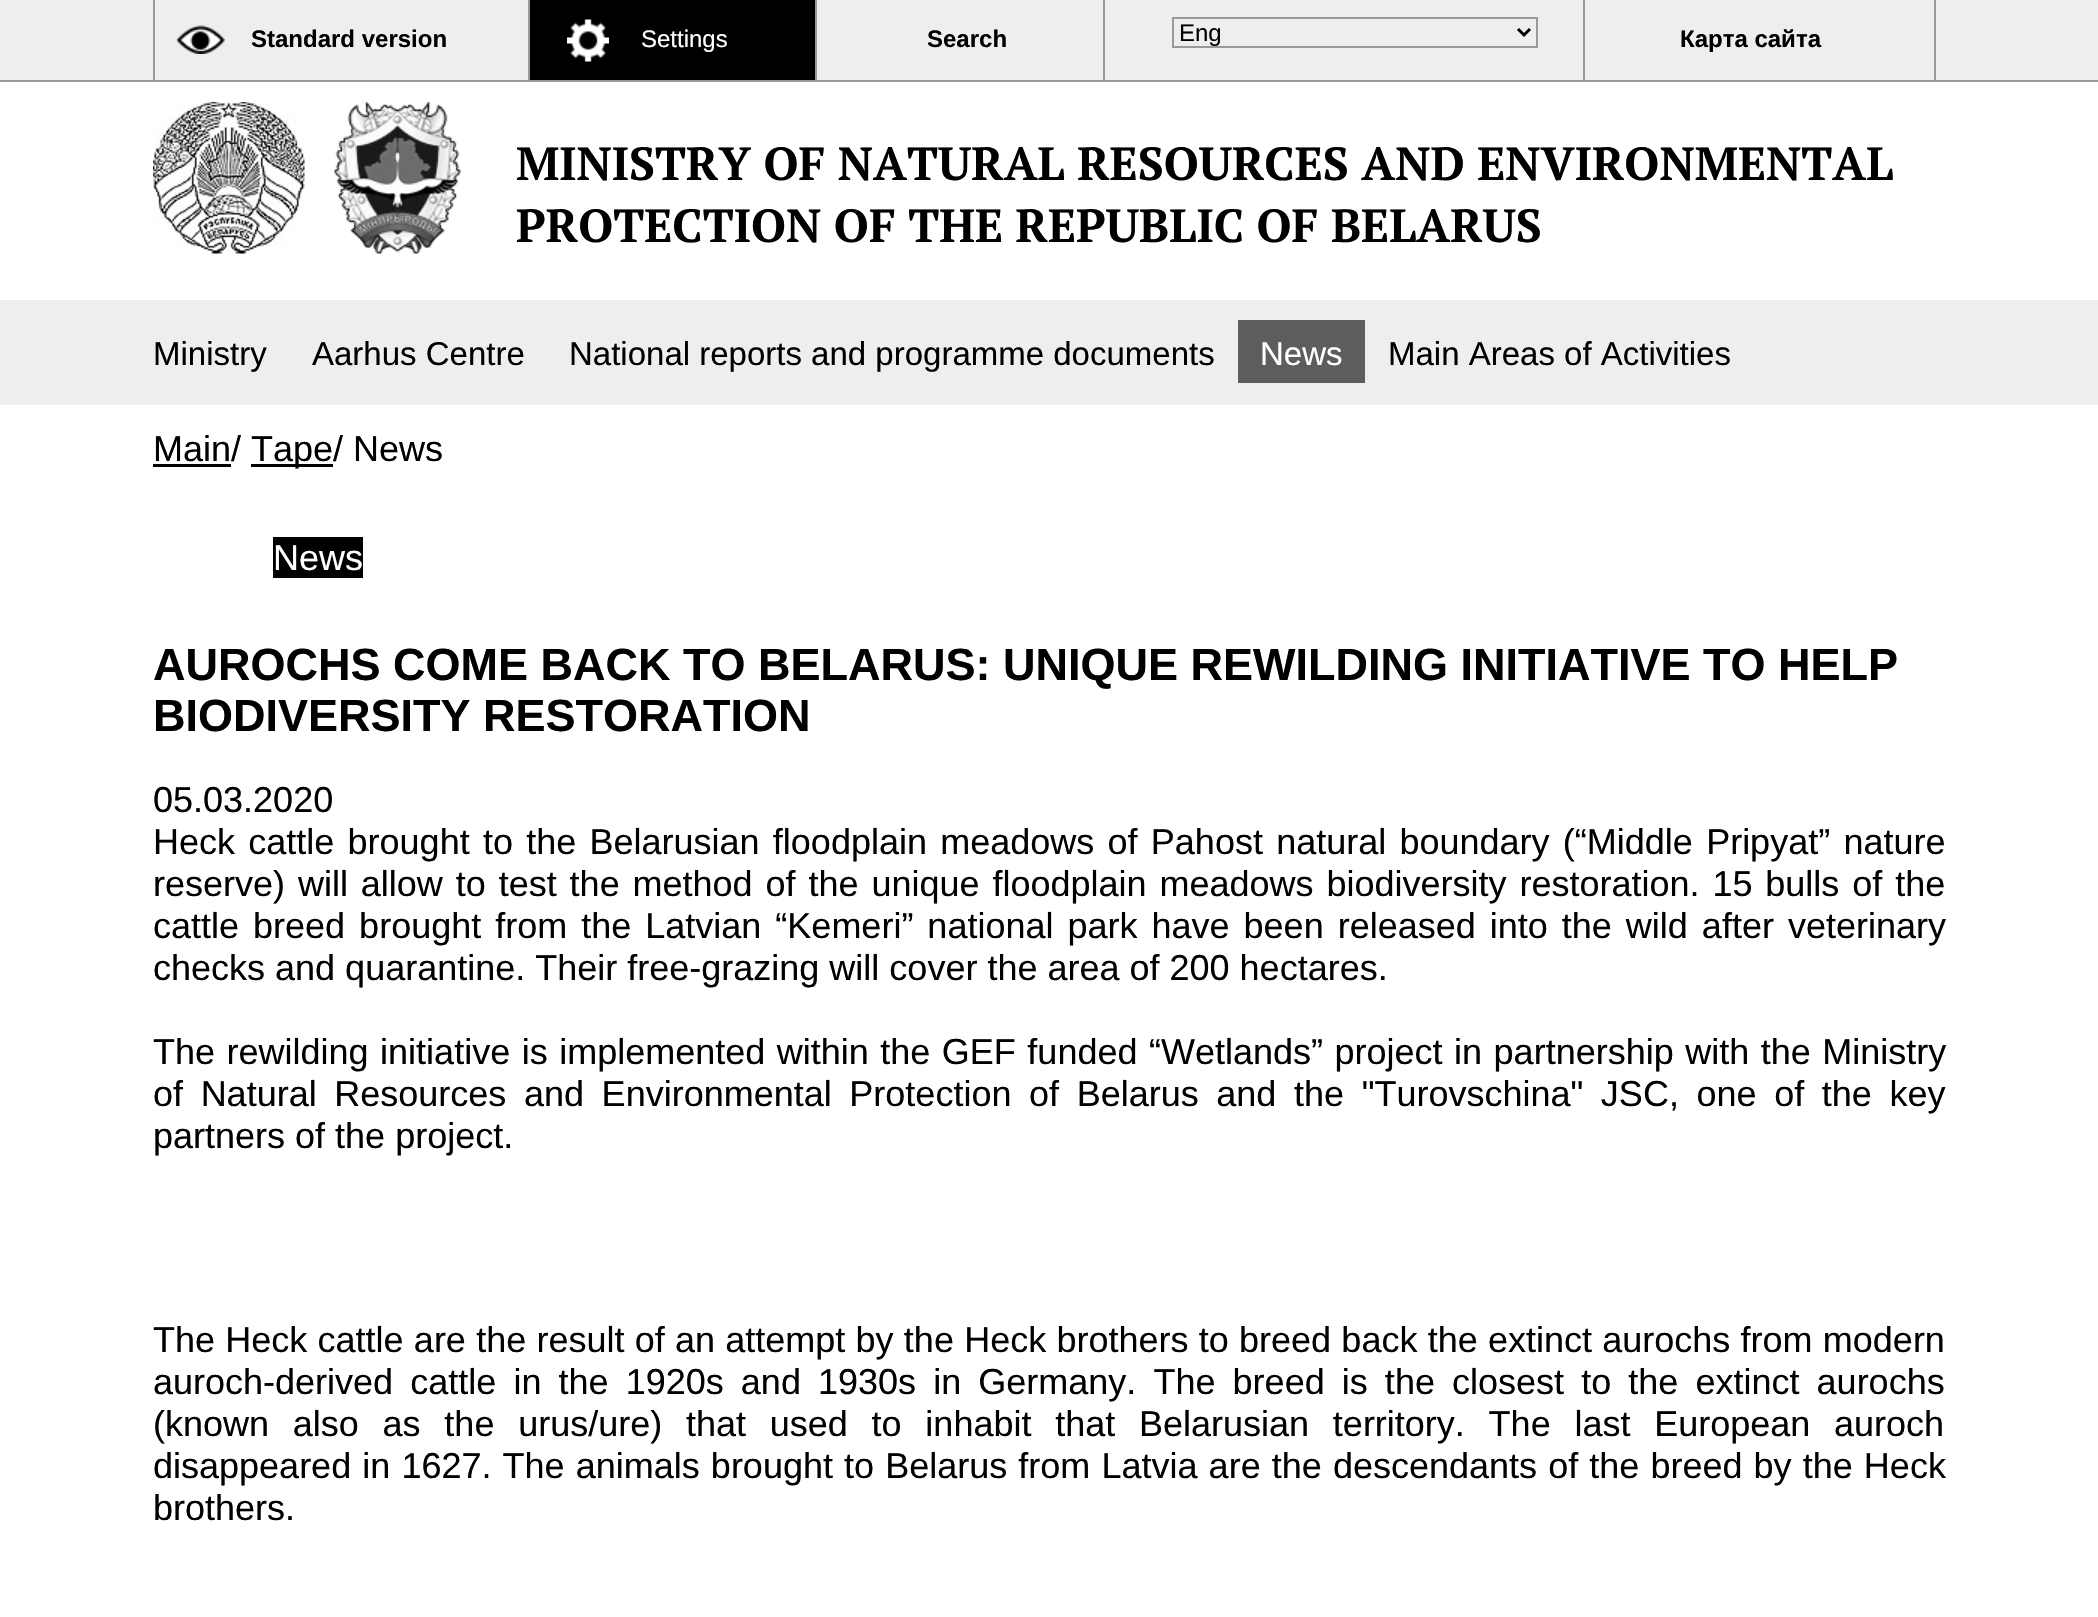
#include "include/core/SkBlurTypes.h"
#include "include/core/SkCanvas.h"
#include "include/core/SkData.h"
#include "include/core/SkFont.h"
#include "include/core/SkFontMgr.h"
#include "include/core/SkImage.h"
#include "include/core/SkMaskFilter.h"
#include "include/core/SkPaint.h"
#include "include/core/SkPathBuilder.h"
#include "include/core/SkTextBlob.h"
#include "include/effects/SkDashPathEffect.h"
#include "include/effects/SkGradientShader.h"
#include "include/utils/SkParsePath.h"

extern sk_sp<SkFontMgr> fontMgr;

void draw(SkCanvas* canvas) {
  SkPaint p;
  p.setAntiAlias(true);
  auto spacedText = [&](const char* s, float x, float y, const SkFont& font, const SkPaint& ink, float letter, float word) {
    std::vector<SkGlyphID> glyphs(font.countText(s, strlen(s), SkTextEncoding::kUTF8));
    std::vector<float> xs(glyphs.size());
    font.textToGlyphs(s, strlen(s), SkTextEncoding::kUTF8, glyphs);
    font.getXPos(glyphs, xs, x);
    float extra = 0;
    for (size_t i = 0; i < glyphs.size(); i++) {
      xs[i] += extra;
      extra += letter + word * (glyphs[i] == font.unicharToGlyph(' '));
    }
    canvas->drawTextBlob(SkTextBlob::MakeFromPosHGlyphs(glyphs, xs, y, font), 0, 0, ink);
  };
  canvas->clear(SK_ColorWHITE);
  p.setColor(SkColorSetRGB(238, 238, 238));
  canvas->drawRect(SkRect::MakeLTRB(0, 0, 2098, 80), p);
  p.setColor(SkColorSetRGB(153, 153, 153));
  canvas->drawRect(SkRect::MakeLTRB(0, 80, 2098, 82), p);
  canvas->drawImageRect(SkImages::DeferredFromEncodedData(SkData::MakeFromFileName("images/1.png")), SkRect::MakeLTRB(177, 25, 225, 54), SkSamplingOptions());
  canvas->drawRect(SkRect::MakeLTRB(153, 0, 155, 80), p);
  p.setColor(SK_ColorBLACK);
  canvas->drawRect(SkRect::MakeLTRB(530, 0, 815, 80), p);
  canvas->drawImageRect(SkImages::DeferredFromEncodedData(SkData::MakeFromFileName("images/2.png")), SkRect::MakeLTRB(567, 19, 609, 62), SkSamplingOptions());
  p.setColor(SkColorSetRGB(153, 153, 153));
  canvas->drawRect(SkRect::MakeLTRB(528, 0, 530, 80), p);
  canvas->drawRect(SkRect::MakeLTRB(815, 0, 817, 80), p);
  canvas->drawRect(SkRect::MakeLTRB(1583, 0, 1585, 80), p);
  canvas->drawRect(SkRect::MakeLTRB(1103, 0, 1105, 80), p);
  p.setStyle(SkPaint::kStroke_Style);
  p.setStrokeWidth(2);
  canvas->drawRect(SkRect::MakeLTRB(1173, 18, 1537, 47), p);
  p.setStrokeWidth(3);
  p.setColor(SK_ColorBLACK);
  canvas->drawPath(SkPathBuilder().moveTo(1518, 29).lineTo(1524, 35).lineTo(1530, 29).detach(), p);
  p.setStyle(SkPaint::kFill_Style);
  p.setColor(SkColorSetRGB(153, 153, 153));
  canvas->drawRect(SkRect::MakeLTRB(1934, 0, 1936, 80), p);
  canvas->drawImageRect(SkImages::DeferredFromEncodedData(SkData::MakeFromFileName("images/3.png")), SkRect::MakeLTRB(153, 102, 305, 254), SkSamplingOptions());
  canvas->drawImageRect(SkImages::DeferredFromEncodedData(SkData::MakeFromFileName("images/4.png")), SkRect::MakeLTRB(334, 102, 461, 254), SkSamplingOptions());
  p.setColor(SkColorSetRGB(238, 238, 238));
  canvas->drawRect(SkRect::MakeLTRB(0, 300, 2098, 405), p);
  p.setColor(SkColorSetRGB(93, 93, 93));
  canvas->drawRect(SkRect::MakeLTRB(1238, 320, 1365, 383), p);
  p.setColor(SK_ColorBLACK);
  canvas->drawRect(SkRect::MakeLTRB(153, 464, 231, 467), p);
  canvas->drawRect(SkRect::MakeLTRB(251, 464, 333, 467), p);
  canvas->drawRect(SkRect::MakeLTRB(273, 537, 363, 578), p);
  SkFont font1(fontMgr->matchFamilyStyle("Liberation Sans", SkFontStyle::Bold()), 24);
  font1.setSubpixel(true);
  canvas->drawString("Standard version", 251, 47, font1, p);
  SkFont font2(fontMgr->matchFamilyStyle("Liberation Sans", SkFontStyle::Normal()), 24);
  font2.setSubpixel(true);
  p.setColor(SK_ColorWHITE);
  canvas->drawString("Settings", 641, 47, font2, p);
  p.setColor(SK_ColorBLACK);
  canvas->drawString("Search", 927, 47, font1, p);
  canvas->drawString("Eng", 1179, 41, font2, p);
  canvas->drawString("Карта сайта", 1680, 47, font1, p);
  SkFont font3(fontMgr->matchFamilyStyle("PT Serif", SkFontStyle::Bold()), 46.5f);
  font3.setSubpixel(true);
  canvas->drawString("MINISTRY OF NATURAL RESOURCES AND ENVIRONMENTAL", 516, 180, font3, p);
  canvas->drawString("PROTECTION OF THE REPUBLIC OF BELARUS", 516, 242, font3, p);
  SkFont font4(fontMgr->matchFamilyStyle("Liberation Sans", SkFontStyle::Normal()), 33);
  font4.setSubpixel(true);
  canvas->drawString("Ministry", 153, 365, font4, p);
  canvas->drawString("Aarhus Centre", 312, 365, font4, p);
  canvas->drawString("National reports and programme documents", 569, 365, font4, p);
  p.setColor(SK_ColorWHITE);
  canvas->drawString("News", 1260, 365, font4, p);
  p.setColor(SK_ColorBLACK);
  canvas->drawString("Main Areas of Activities", 1388, 365, font4, p);
  SkFont font5(fontMgr->matchFamilyStyle("Liberation Sans", SkFontStyle::Normal()), 36);
  font5.setSubpixel(true);
  canvas->drawString("Main/", 153, 461, font5, p);
  canvas->drawString("Tape/ News", 251, 461, font5, p);
  p.setColor(SK_ColorWHITE);
  canvas->drawString("News", 273, 570, font5, p);
  SkFont font6(fontMgr->matchFamilyStyle("Liberation Sans", SkFontStyle::Bold()), 45);
  font6.setSubpixel(true);
  p.setColor(SK_ColorBLACK);
  canvas->drawString("AUROCHS COME BACK TO BELARUS: UNIQUE REWILDING INITIATIVE TO HELP", 153, 680, font6, p);
  canvas->drawString("BIODIVERSITY RESTORATION", 153, 731, font6, p);
  canvas->drawString("05.03.2020", 153, 812, font5, p);
  spacedText("Heck cattle brought to the Belarusian floodplain meadows of Pahost natural boundary (“Middle Pripyat” nature", 153, 854, font5, p, 0, 3.25f);
  spacedText("reserve) will allow to test the method of the unique floodplain meadows biodiversity restoration. 15 bulls of the", 153, 896, font5, p, 0, 2.9f);
  spacedText("cattle breed brought from the Latvian “Kemeri” national park have been released into the wild after veterinary", 153, 938, font5, p, 0, 4);
  canvas->drawString("checks and quarantine. Their free-grazing will cover the area of 200 hectares.", 153, 980, font5, p);
  spacedText("The rewilding initiative is implemented within the GEF funded “Wetlands” project in partnership with the Ministry", 153, 1064, font5, p, 0, 1.5f);
  spacedText("of Natural Resources and Environmental Protection of Belarus and the \"Turovschina\" JSC, one of the key", 153, 1106, font5, p, 0, 7.6f);
  canvas->drawString("partners of the project.", 153, 1148, font5, p);
  spacedText("The Heck cattle are the result of an attempt by the Heck brothers to breed back the extinct aurochs from modern", 153, 1352, font5, p, 0, 0.25f);
  spacedText("auroch-derived cattle in the 1920s and 1930s in Germany. The breed is the closest to the extinct aurochs", 153, 1394, font5, p, 0, 7.1f);
  spacedText("(known also as the urus/ure) that used to inhabit that Belarusian territory. The last European auroch", 153, 1436, font5, p, 0, 13.75f);
  spacedText("disappeared in 1627. The animals brought to Belarus from Latvia are the descendants of the breed by the Heck", 153, 1478, font5, p, 0, 1.1f);
  canvas->drawString("brothers.", 153, 1520, font5, p);
}
